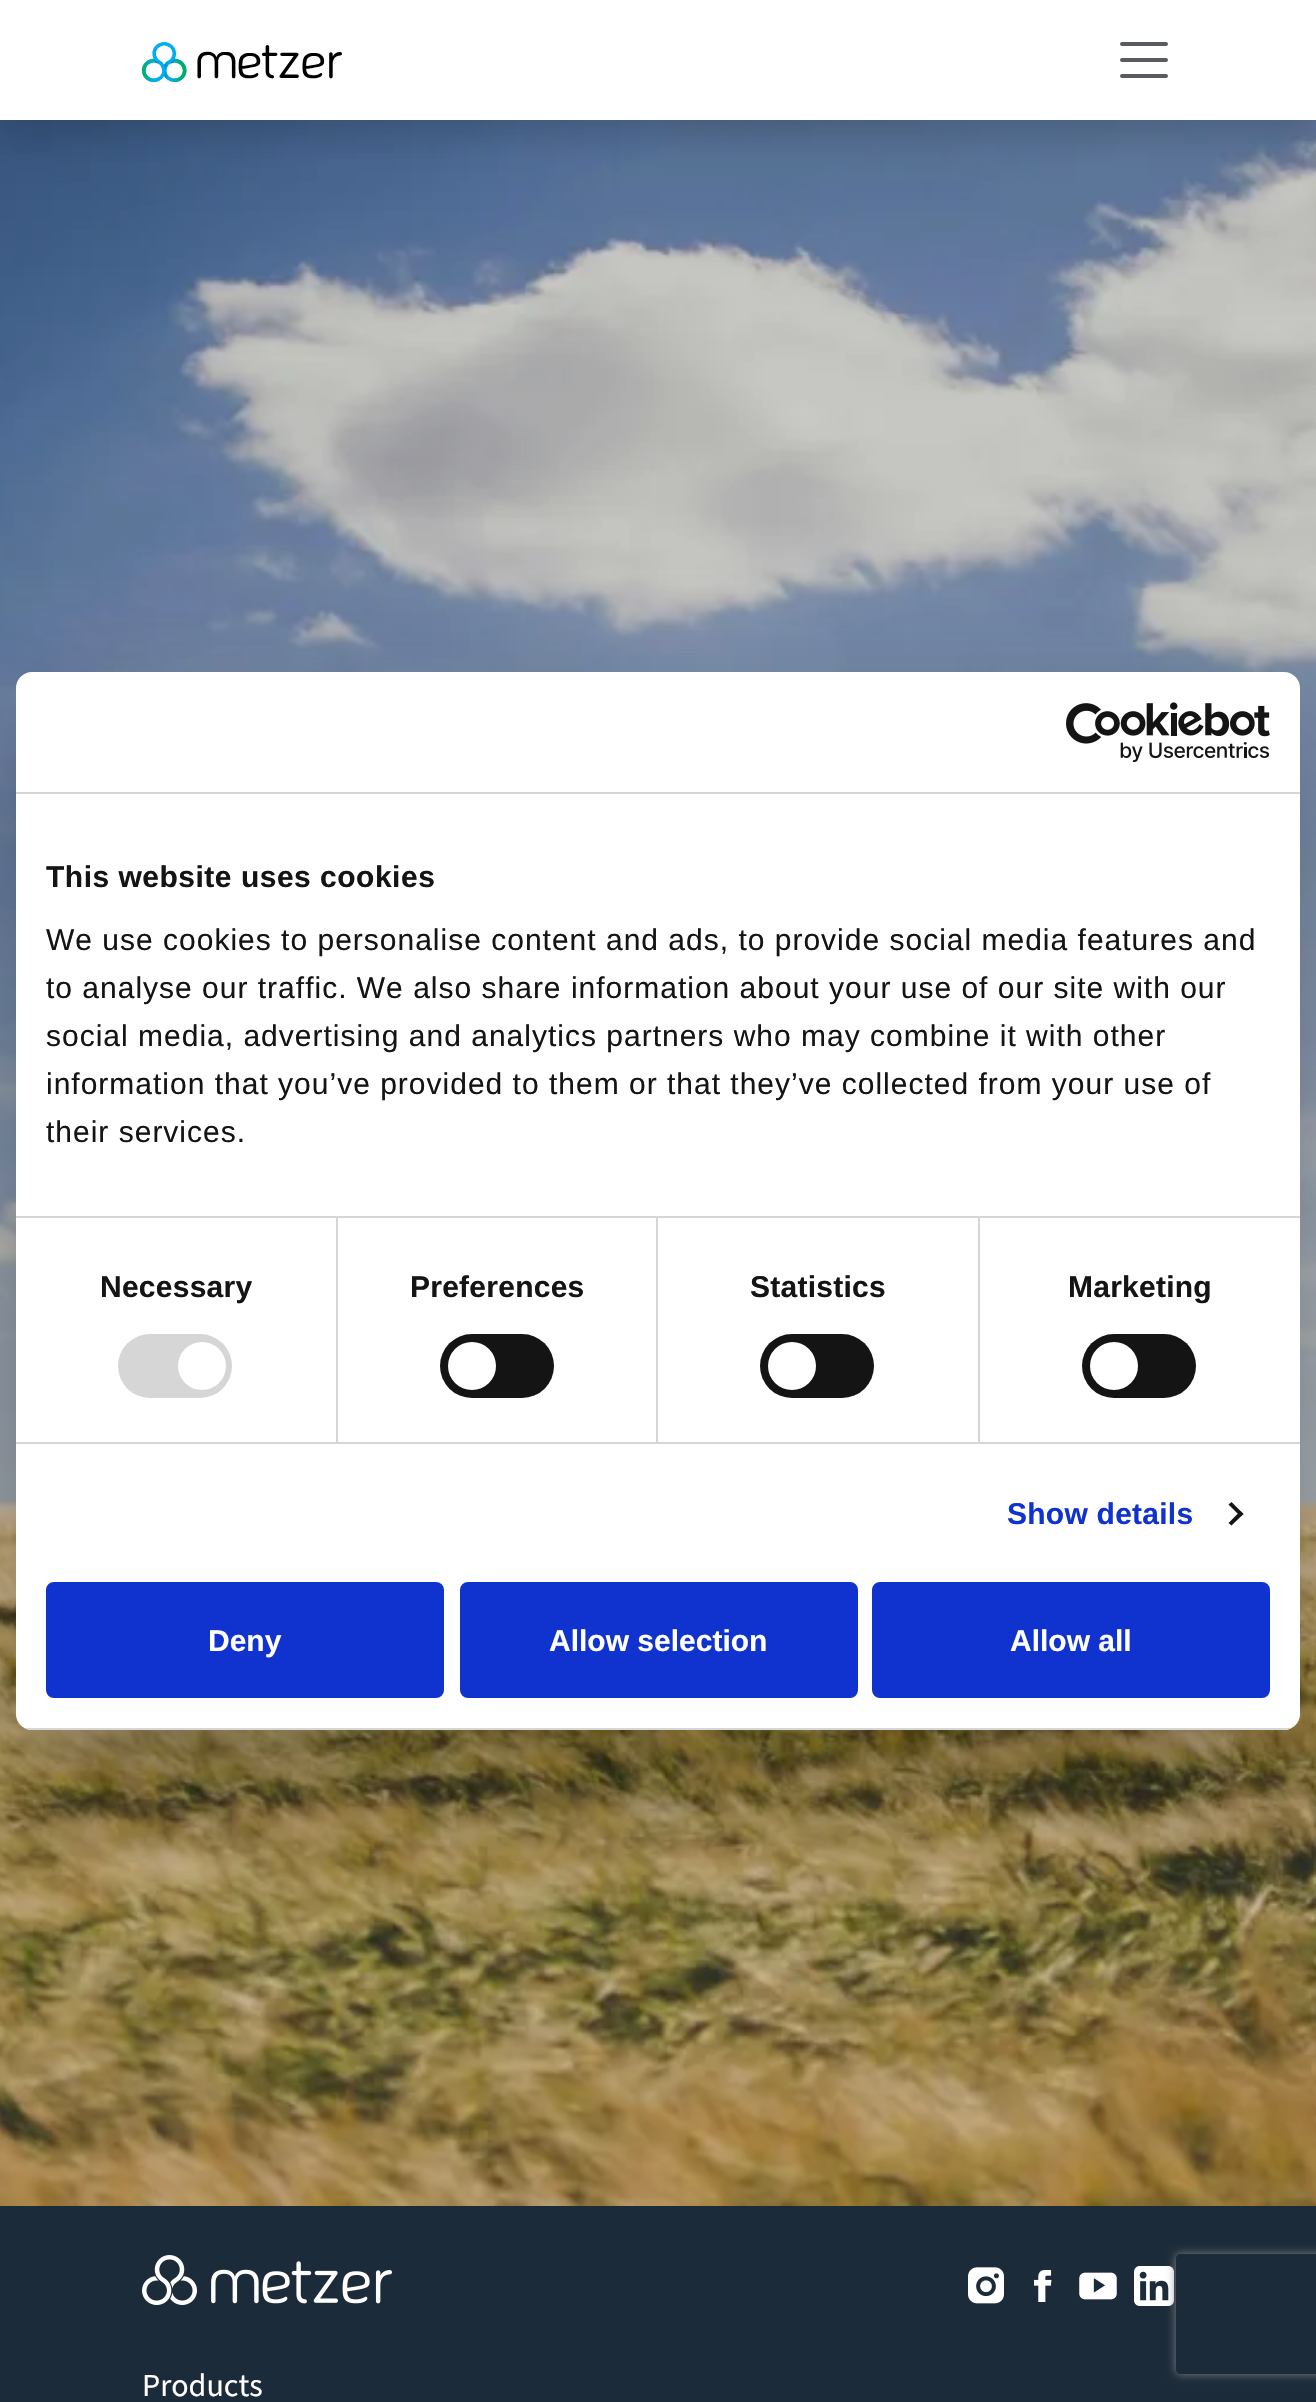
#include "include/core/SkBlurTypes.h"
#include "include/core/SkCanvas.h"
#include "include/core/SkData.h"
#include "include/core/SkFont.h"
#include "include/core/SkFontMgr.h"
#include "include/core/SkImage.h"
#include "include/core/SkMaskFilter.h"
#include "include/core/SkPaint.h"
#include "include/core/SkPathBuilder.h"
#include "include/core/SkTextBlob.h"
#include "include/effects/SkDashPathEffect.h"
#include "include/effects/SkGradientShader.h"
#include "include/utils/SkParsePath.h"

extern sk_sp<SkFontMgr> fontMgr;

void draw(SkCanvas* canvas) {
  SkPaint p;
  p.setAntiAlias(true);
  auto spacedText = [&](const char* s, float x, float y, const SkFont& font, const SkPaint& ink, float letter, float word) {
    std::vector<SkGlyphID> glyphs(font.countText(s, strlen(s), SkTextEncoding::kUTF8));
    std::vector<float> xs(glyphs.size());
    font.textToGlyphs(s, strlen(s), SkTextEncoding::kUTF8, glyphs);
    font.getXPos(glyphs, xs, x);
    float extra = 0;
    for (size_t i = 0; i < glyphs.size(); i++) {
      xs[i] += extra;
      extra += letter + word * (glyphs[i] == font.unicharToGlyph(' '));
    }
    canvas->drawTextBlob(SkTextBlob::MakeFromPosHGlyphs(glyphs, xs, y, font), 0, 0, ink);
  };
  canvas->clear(SK_ColorWHITE);
  canvas->drawImageRect(SkImages::DeferredFromEncodedData(SkData::MakeFromFileName("images/2.png")), SkRect::MakeLTRB(0, 120, 1316, 2206), SkSamplingOptions());
  p.setColor(SkColorSetARGB(38, 0, 0, 0));
  p.setMaskFilter(SkMaskFilter::MakeBlur(kNormal_SkBlurStyle, 16));
  canvas->drawRect(SkRect::MakeLTRB(0, 16, 1316, 136), p);
  p.setMaskFilter(nullptr);
  p.setColor(SK_ColorWHITE);
  canvas->drawRect(SkRect::MakeLTRB(0, 0, 1316, 120), p);
  canvas->drawImageRect(SkImages::DeferredFromEncodedData(SkData::MakeFromFileName("images/1.png")), SkRect::MakeLTRB(142, 42, 342, 82), SkSamplingOptions());
  p.setStyle(SkPaint::kStroke_Style);
  p.setStrokeWidth(4);
  p.setStrokeCap(SkPaint::kRound_Cap);
  p.setColor(SkColorSetRGB(89, 92, 95));
  canvas->drawPath(SkPathBuilder().moveTo(1122, 44).lineTo(1166, 44).moveTo(1122, 60).lineTo(1166, 60).moveTo(1122, 76).lineTo(1166, 76).detach(), p);
  p.setStyle(SkPaint::kFill_Style);
  p.setColor(SkColorSetARGB(77, 0, 0, 0));
  p.setMaskFilter(SkMaskFilter::MakeBlur(kNormal_SkBlurStyle, 68));
  canvas->drawRoundRect(SkRect::MakeLTRB(16, 736, 1300, 1794), 16, 16, p);
  p.setMaskFilter(nullptr);
  p.setColor(SK_ColorWHITE);
  canvas->drawRoundRect(SkRect::MakeLTRB(16, 672, 1300, 1730), 16, 16, p);
  p.setColor(SkColorSetRGB(214, 214, 214));
  canvas->drawRect(SkRect::MakeLTRB(16, 792, 1300, 794), p);
  canvas->drawImageRect(SkImages::DeferredFromEncodedData(SkData::MakeFromFileName("images/3.png")), SkRect::MakeLTRB(1066, 702, 1270, 762), SkSamplingOptions());
  canvas->drawRect(SkRect::MakeLTRB(16, 1216, 1300, 1218), p);
  canvas->drawRect(SkRect::MakeLTRB(16, 1442, 1300, 1444), p);
  canvas->drawRect(SkRect::MakeLTRB(336, 1218, 338, 1442), p);
  canvas->drawRoundRect(SkRect::MakeLTRB(118, 1334, 232, 1398), 32, 32, p);
  p.setColor(SK_ColorWHITE);
  canvas->drawCircle(202, 1366, 24, p);
  p.setColor(SkColorSetRGB(214, 214, 214));
  canvas->drawRect(SkRect::MakeLTRB(656, 1218, 658, 1442), p);
  p.setColor(SkColorSetRGB(20, 20, 20));
  canvas->drawRoundRect(SkRect::MakeLTRB(440, 1334, 554, 1398), 32, 32, p);
  p.setColor(SK_ColorWHITE);
  canvas->drawCircle(472, 1366, 24, p);
  p.setColor(SkColorSetRGB(214, 214, 214));
  canvas->drawRect(SkRect::MakeLTRB(978, 1218, 980, 1442), p);
  p.setColor(SkColorSetRGB(20, 20, 20));
  canvas->drawRoundRect(SkRect::MakeLTRB(760, 1334, 874, 1398), 32, 32, p);
  p.setColor(SK_ColorWHITE);
  canvas->drawCircle(792, 1366, 24, p);
  p.setColor(SkColorSetRGB(20, 20, 20));
  canvas->drawRoundRect(SkRect::MakeLTRB(1082, 1334, 1196, 1398), 32, 32, p);
  p.setColor(SK_ColorWHITE);
  canvas->drawCircle(1114, 1366, 24, p);
  p.setColor(SkColorSetRGB(20, 20, 20));
  canvas->drawPath(SkPathBuilder().moveTo(1231.5f, 1502).lineTo(1243.5f, 1514).lineTo(1240.5f, 1516.5f).lineTo(1228.5f, 1504.5f).close().detach(), p);
  canvas->drawPath(SkPathBuilder().moveTo(1240.5f, 1511).lineTo(1243.5f, 1514).lineTo(1231.5f, 1525.5f).lineTo(1228.5f, 1523).close().detach(), p);
  canvas->save();
  canvas->clipPath(SkPathBuilder().moveTo(32, 672).lineTo(1284, 672).cubicTo(1293, 672, 1300, 679, 1300, 688).lineTo(1300, 1714).cubicTo(1300, 1723, 1293, 1730, 1284, 1730).lineTo(32, 1730).cubicTo(23, 1730, 16, 1723, 16, 1714).lineTo(16, 688).cubicTo(16, 679, 23, 672, 32, 672).close().detach(), true);
  p.setColor(SkColorSetRGB(214, 214, 214));
  canvas->drawRect(SkRect::MakeLTRB(16, 1728, 1300, 1730), p);
  canvas->restore();
  p.setColor(SkColorSetRGB(16, 50, 207));
  canvas->drawRoundRect(SkRect::MakeLTRB(48, 1584, 442, 1696), 6, 6, p);
  p.setStyle(SkPaint::kStroke_Style);
  p.setStrokeCap(SkPaint::kButt_Cap);
  canvas->drawRoundRect(SkRect::MakeLTRB(48, 1584, 442, 1696), 6, 6, p);
  p.setStyle(SkPaint::kFill_Style);
  canvas->drawRoundRect(SkRect::MakeLTRB(462, 1584, 856, 1696), 6, 6, p);
  p.setStyle(SkPaint::kStroke_Style);
  canvas->drawRoundRect(SkRect::MakeLTRB(462, 1584, 856, 1696), 6, 6, p);
  p.setStyle(SkPaint::kFill_Style);
  canvas->drawRoundRect(SkRect::MakeLTRB(874, 1584, 1268, 1696), 6, 6, p);
  p.setStyle(SkPaint::kStroke_Style);
  canvas->drawRoundRect(SkRect::MakeLTRB(874, 1584, 1268, 1696), 6, 6, p);
  p.setStyle(SkPaint::kFill_Style);
  p.setColor(SkColorSetRGB(28, 43, 57));
  canvas->drawRect(SkRect::MakeLTRB(0, 2206, 1316, 2402), p);
  canvas->drawImageRect(SkImages::DeferredFromEncodedData(SkData::MakeFromFileName("images/4.png")), SkRect::MakeLTRB(142, 2255, 392, 2305), SkSamplingOptions());
  canvas->drawImageRect(SkImages::DeferredFromEncodedData(SkData::MakeFromFileName("images/5.png")), SkRect::MakeLTRB(968, 2267, 1004, 2304), SkSamplingOptions());
  canvas->drawImageRect(SkImages::DeferredFromEncodedData(SkData::MakeFromFileName("images/6.png")), SkRect::MakeLTRB(1034, 2270, 1052, 2302), SkSamplingOptions());
  canvas->drawImageRect(SkImages::DeferredFromEncodedData(SkData::MakeFromFileName("images/7.png")), SkRect::MakeLTRB(1079, 2272, 1117, 2300), SkSamplingOptions());
  canvas->drawImageRect(SkImages::DeferredFromEncodedData(SkData::MakeFromFileName("images/8.png")), SkRect::MakeLTRB(1134, 2266, 1174, 2306), SkSamplingOptions());
  canvas->save();
  canvas->clipPath(SkPathBuilder(SkPathFillType::kEvenOdd).moveTo(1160, 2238).lineTo(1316, 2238).lineTo(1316, 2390).lineTo(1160, 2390).close().moveTo(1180, 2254).lineTo(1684, 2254).cubicTo(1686, 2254, 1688, 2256, 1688, 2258).lineTo(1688, 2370).cubicTo(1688, 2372, 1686, 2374, 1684, 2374).lineTo(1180, 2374).cubicTo(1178, 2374, 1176, 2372, 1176, 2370).lineTo(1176, 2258).cubicTo(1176, 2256, 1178, 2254, 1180, 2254).close().detach(), true);
  p.setColor(SkColorSetRGB(128, 128, 128));
  p.setMaskFilter(SkMaskFilter::MakeBlur(kNormal_SkBlurStyle, 5));
  canvas->drawRoundRect(SkRect::MakeLTRB(1176, 2254, 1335, 2374), 4, 4, p);
  p.setMaskFilter(nullptr);
  canvas->restore();
  SkFont font1(fontMgr->matchFamilyStyle("Liberation Sans", SkFontStyle::Bold()), 30);
  font1.setSubpixel(true);
  p.setColor(SkColorSetRGB(20, 20, 20));
  spacedText("This website uses cookies", 46, 887, font1, p, 0.5f, 0);
  SkFont font2(fontMgr->matchFamilyStyle("Liberation Sans", SkFontStyle::Normal()), 30);
  font2.setSubpixel(true);
  spacedText("We use cookies to personalise content and ads, to provide social media features and", 46, 950, font2, p, 1, 0);
  spacedText("to analyse our traffic. We also share information about your use of our site with our", 46, 998, font2, p, 1, 0);
  spacedText("social media, advertising and analytics partners who may combine it with other", 46, 1046, font2, p, 1, 0);
  spacedText("information that you’ve provided to them or that they’ve collected from your use of", 46, 1094, font2, p, 1, 0);
  spacedText("their services.", 46, 1142, font2, p, 1, 0);
  spacedText("Necessary", 100, 1297, font1, p, 0.25f, 0);
  spacedText("Preferences", 410, 1297, font1, p, 0.25f, 0);
  spacedText("Statistics", 750, 1297, font1, p, 0.25f, 0);
  spacedText("Marketing", 1068, 1297, font1, p, 0.25f, 0);
  p.setColor(SkColorSetRGB(16, 50, 207));
  spacedText("Show details", 1007, 1524, font1, p, 0.25f, 0);
  p.setColor(SK_ColorWHITE);
  canvas->drawString("Deny", 208, 1651, font1, p);
  canvas->drawString("Allow selection", 549, 1651, font1, p);
  canvas->drawString("Allow all", 1010, 1651, font1, p);
  SkFont font3(fontMgr->matchFamilyStyle("Source Sans Pro", SkFontStyle::Normal()), 32);
  font3.setSubpixel(true);
  canvas->drawString("Products", 142, 2396, font3, p);
}
